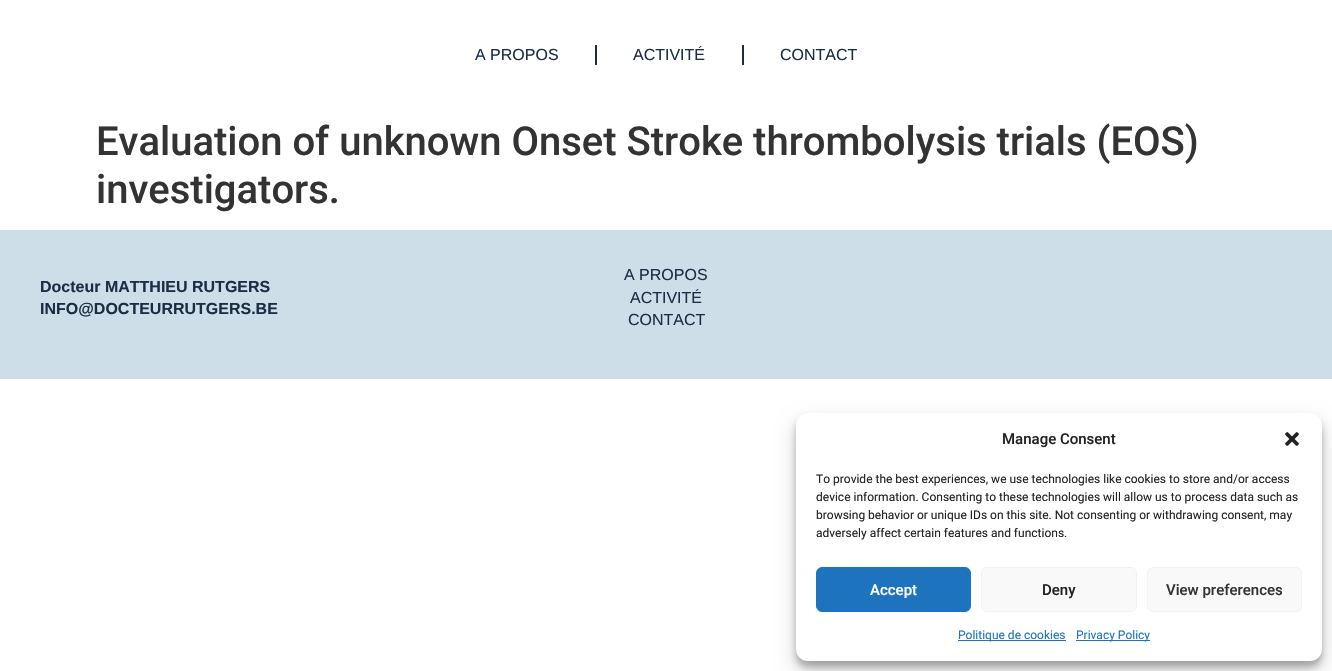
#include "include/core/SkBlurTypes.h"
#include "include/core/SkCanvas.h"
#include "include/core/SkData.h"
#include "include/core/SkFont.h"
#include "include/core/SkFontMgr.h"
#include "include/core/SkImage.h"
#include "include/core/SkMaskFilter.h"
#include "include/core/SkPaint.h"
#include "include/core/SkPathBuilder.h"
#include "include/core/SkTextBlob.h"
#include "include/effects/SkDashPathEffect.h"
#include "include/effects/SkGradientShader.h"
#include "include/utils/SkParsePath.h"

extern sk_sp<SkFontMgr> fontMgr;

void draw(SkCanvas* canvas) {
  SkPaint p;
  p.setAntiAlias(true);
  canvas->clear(SK_ColorWHITE);
  p.setColor(SkColorSetRGB(27, 45, 69));
  canvas->drawRect(SkRect::MakeLTRB(595, 45, 597, 65), p);
  canvas->drawRect(SkRect::MakeLTRB(742, 45, 744, 65), p);
  p.setColor(SkColorSetRGB(205, 222, 232));
  canvas->drawRect(SkRect::MakeLTRB(0, 230, 1332, 379), p);
  p.setColor(SkColorSetARGB(59, 0, 0, 0));
  p.setMaskFilter(SkMaskFilter::MakeBlur(kNormal_SkBlurStyle, 3));
  canvas->drawRoundRect(SkRect::MakeLTRB(796, 419, 1322, 667), 12, 12, p);
  p.setMaskFilter(nullptr);
  p.setColor(SkColorSetARGB(48, 0, 0, 0));
  p.setMaskFilter(SkMaskFilter::MakeBlur(kNormal_SkBlurStyle, 10));
  canvas->drawRoundRect(SkRect::MakeLTRB(796, 423, 1322, 671), 12, 12, p);
  p.setMaskFilter(nullptr);
  p.setColor(SK_ColorWHITE);
  canvas->drawRoundRect(SkRect::MakeLTRB(796, 413, 1322, 661), 12, 12, p);
  canvas->drawImageRect(SkImages::DeferredFromEncodedData(SkData::MakeFromFileName("images/1.png")), SkRect::MakeLTRB(1285, 432, 1299, 446), SkSamplingOptions());
  p.setColor(SkColorSetRGB(30, 115, 190));
  canvas->drawRoundRect(SkRect::MakeLTRB(816.5f, 567.5f, 970.5f, 611.5f), 5.5f, 5.5f, p);
  p.setStyle(SkPaint::kStroke_Style);
  p.setStrokeWidth(1);
  canvas->drawRoundRect(SkRect::MakeLTRB(816.5f, 567.5f, 970.5f, 611.5f), 5.5f, 5.5f, p);
  p.setStyle(SkPaint::kFill_Style);
  p.setColor(SkColorSetRGB(249, 249, 249));
  canvas->drawRoundRect(SkRect::MakeLTRB(981.5f, 567.5f, 1136.5f, 611.5f), 5.5f, 5.5f, p);
  p.setStyle(SkPaint::kStroke_Style);
  p.setColor(SkColorSetRGB(242, 242, 242));
  canvas->drawRoundRect(SkRect::MakeLTRB(981.5f, 567.5f, 1136.5f, 611.5f), 5.5f, 5.5f, p);
  p.setStyle(SkPaint::kFill_Style);
  p.setColor(SkColorSetRGB(249, 249, 249));
  canvas->drawRoundRect(SkRect::MakeLTRB(1147.5f, 567.5f, 1301.5f, 611.5f), 5.5f, 5.5f, p);
  p.setStyle(SkPaint::kStroke_Style);
  p.setColor(SkColorSetRGB(242, 242, 242));
  canvas->drawRoundRect(SkRect::MakeLTRB(1147.5f, 567.5f, 1301.5f, 611.5f), 5.5f, 5.5f, p);
  p.setStyle(SkPaint::kFill_Style);
  p.setColor(SkColorSetRGB(30, 115, 190));
  canvas->drawRect(SkRect::MakeLTRB(958, 640, 1066, 641), p);
  canvas->drawRect(SkRect::MakeLTRB(1076, 640, 1150, 641), p);
  SkFont font1(fontMgr->matchFamilyStyle("Liberation Sans", SkFontStyle::Normal()), 16);
  font1.setSubpixel(true);
  p.setColor(SkColorSetRGB(27, 45, 69));
  canvas->drawString("A PROPOS", 475, 60, font1, p);
  canvas->drawString("ACTIVITÉ", 633, 60, font1, p);
  canvas->drawString("CONTACT", 780, 60, font1, p);
  SkFont font2(fontMgr->matchFamilyStyle("Roboto", SkFontStyle(500, SkFontStyle::kNormal_Width, SkFontStyle::kUpright_Slant)), 40);
  font2.setSubpixel(true);
  p.setColor(SkColorSetRGB(51, 51, 51));
  canvas->drawString("Evaluation of unknown Onset Stroke thrombolysis trials (EOS)", 96, 155, font2, p);
  canvas->drawString("investigators.", 96, 203, font2, p);
  SkFont font3(fontMgr->matchFamilyStyle("Liberation Sans", SkFontStyle::Bold()), 16);
  font3.setSubpixel(true);
  p.setColor(SkColorSetRGB(27, 45, 69));
  canvas->drawString("Docteur MATTHIEU RUTGERS", 40, 292, font3, p);
  canvas->drawString("INFO@DOCTEURRUTGERS.BE", 40, 314, font3, p);
  canvas->drawString("A PROPOS", 624, 280, font1, p);
  canvas->drawString("ACTIVITÉ", 630, 303, font1, p);
  canvas->drawString("CONTACT", 628, 325, font1, p);
  SkFont font4(fontMgr->matchFamilyStyle("Roboto", SkFontStyle(500, SkFontStyle::kNormal_Width, SkFontStyle::kUpright_Slant)), 15);
  font4.setSubpixel(true);
  p.setColor(SkColorSetRGB(34, 34, 34));
  canvas->drawString("Manage Consent", 1002, 444, font4, p);
  SkFont font5(fontMgr->matchFamilyStyle("Roboto", SkFontStyle::Normal()), 12);
  font5.setSubpixel(true);
  canvas->drawString("To provide the best experiences, we use technologies like cookies to store and/or access", 816, 483, font5, p);
  canvas->drawString("device information. Consenting to these technologies will allow us to process data such as", 816, 501, font5, p);
  canvas->drawString("browsing behavior or unique IDs on this site. Not consenting or withdrawing consent, may", 816, 519, font5, p);
  canvas->drawString("adversely affect certain features and functions.", 816, 537, font5, p);
  p.setColor(SK_ColorWHITE);
  canvas->drawString("Accept", 870, 595, font4, p);
  p.setColor(SkColorSetRGB(34, 34, 34));
  canvas->drawString("Deny", 1042, 595, font4, p);
  p.setColor(SkColorSetRGB(51, 51, 51));
  canvas->drawString("View preferences", 1166, 595, font4, p);
  p.setColor(SkColorSetRGB(30, 115, 190));
  canvas->drawString("Politique de cookies", 958, 639, font5, p);
  canvas->drawString("Privacy Policy", 1076, 639, font5, p);
}
